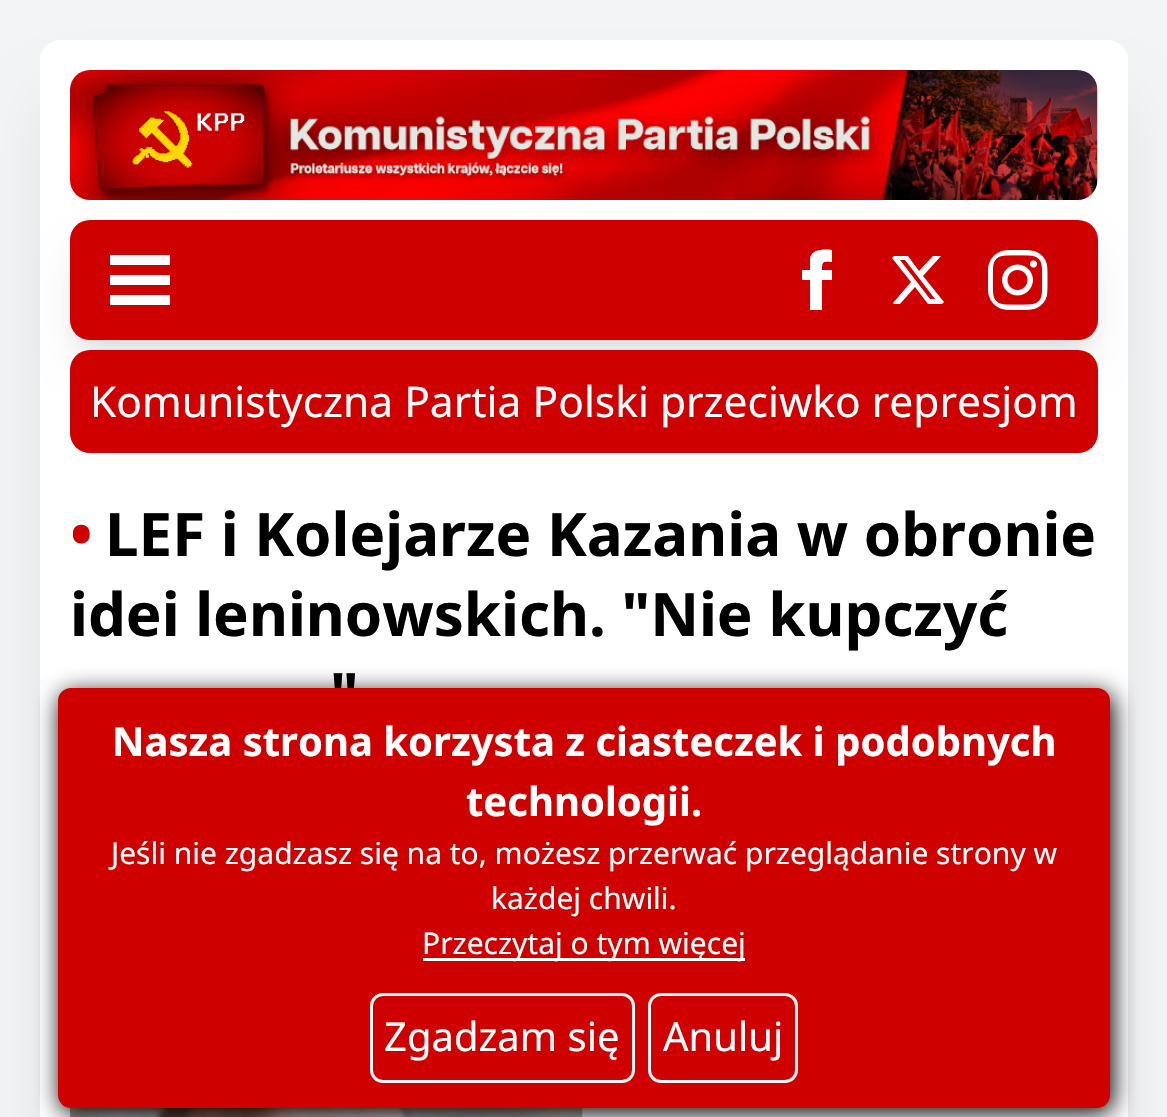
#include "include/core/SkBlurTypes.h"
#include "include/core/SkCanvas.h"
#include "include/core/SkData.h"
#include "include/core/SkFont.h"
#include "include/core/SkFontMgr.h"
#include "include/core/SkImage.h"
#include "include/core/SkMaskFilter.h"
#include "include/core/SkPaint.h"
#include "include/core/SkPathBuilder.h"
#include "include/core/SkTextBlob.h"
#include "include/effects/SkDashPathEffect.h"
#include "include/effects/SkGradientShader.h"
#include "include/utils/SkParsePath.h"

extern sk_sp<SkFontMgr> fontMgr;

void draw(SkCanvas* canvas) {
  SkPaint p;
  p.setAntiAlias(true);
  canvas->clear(SkColorSetRGB(243, 244, 246));
  p.setColor(SkColorSetARGB(26, 0, 0, 0));
  p.setMaskFilter(SkMaskFilter::MakeBlur(kNormal_SkBlurStyle, 31));
  canvas->drawRoundRect(SkRect::MakeLTRB(53, 103, 1115, 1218), 8, 8, p);
  p.setMaskFilter(nullptr);
  p.setColor(SK_ColorWHITE);
  canvas->drawRoundRect(SkRect::MakeLTRB(40, 40, 1128, 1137), 20, 20, p);
  p.setColor(SkColorSetARGB(26, 0, 0, 0));
  p.setMaskFilter(SkMaskFilter::MakeBlur(kNormal_SkBlurStyle, 19));
  canvas->drawRoundRect(SkRect::MakeLTRB(78, 253, 1090, 358), 13, 13, p);
  p.setMaskFilter(nullptr);
  canvas->drawImageRect(SkImages::DeferredFromEncodedData(SkData::MakeFromFileName("images/1.png")), SkRect::MakeLTRB(70, 70, 1098, 200), SkSamplingOptions());
  p.setMaskFilter(SkMaskFilter::MakeBlur(kNormal_SkBlurStyle, 7.5f));
  canvas->drawRoundRect(SkRect::MakeLTRB(80, 240, 1088, 340), 10, 10, p);
  p.setMaskFilter(nullptr);
  p.setColor(SkColorSetRGB(206, 0, 0));
  canvas->drawRoundRect(SkRect::MakeLTRB(70, 220, 1098, 340), 20, 20, p);
  p.setColor(SK_ColorWHITE);
  canvas->drawRect(SkRect::MakeLTRB(110, 255, 170, 265), p);
  canvas->drawRect(SkRect::MakeLTRB(110, 275, 170, 285), p);
  canvas->drawRect(SkRect::MakeLTRB(110, 295, 170, 305), p);
  canvas->drawPath(SkPathBuilder().moveTo(810, 270).lineTo(810, 259).cubicTo(811, 249, 824, 249, 832, 250).lineTo(832, 262).cubicTo(824, 262, 822, 260, 822, 270).lineTo(832, 270).lineTo(832, 280).lineTo(822, 280).lineTo(822, 310).lineTo(810, 310).lineTo(810, 280).lineTo(802, 280).lineTo(802, 270).close().detach(), p);
  canvas->drawPath(SkPathBuilder(SkPathFillType::kEvenOdd).moveTo(933, 256).lineTo(941, 256).lineTo(923, 276).lineTo(944, 302).lineTo(942, 304).lineTo(928, 304).lineTo(915, 287).lineTo(900, 304).lineTo(894, 304).lineTo(893, 303).lineTo(911, 282).lineTo(892, 258).lineTo(894, 256).lineTo(908, 256).lineTo(919, 271).close().moveTo(930, 299).lineTo(900, 260).lineTo(905, 260).lineTo(935, 299).close().detach(), p);
  canvas->drawImageRect(SkImages::DeferredFromEncodedData(SkData::MakeFromFileName("images/2.png")), SkRect::MakeLTRB(988, 250, 1048, 310), SkSamplingOptions());
  p.setColor(SkColorSetRGB(206, 0, 0));
  canvas->drawRoundRect(SkRect::MakeLTRB(70, 350, 1098, 453), 20, 20, p);
  canvas->drawImageRect(SkImages::DeferredFromEncodedData(SkData::MakeFromFileName("images/3.png")), SkRect::MakeLTRB(70, 1107, 583, 1117), SkSamplingOptions());
  p.setColor(SK_ColorBLACK);
  p.setMaskFilter(SkMaskFilter::MakeBlur(kNormal_SkBlurStyle, 12.5f));
  canvas->drawRoundRect(SkRect::MakeLTRB(60, 693, 1113, 1113), 13, 13, p);
  p.setMaskFilter(nullptr);
  SkFont font1(fontMgr->matchFamilyStyle("Noto Sans", SkFontStyle::Normal()), 42.5f);
  font1.setSubpixel(true);
  p.setColor(SK_ColorWHITE);
  canvas->drawString("Komunistyczna Partia Polski przeciwko represjom", 90, 417, font1, p);
  SkFont font2(fontMgr->matchFamilyStyle("Noto Sans", SkFontStyle::Bold()), 60);
  font2.setSubpixel(true);
  p.setColor(SkColorSetRGB(206, 0, 0));
  canvas->drawString("•", 70, 556, font2, p);
  p.setColor(SK_ColorBLACK);
  canvas->drawString("LEF i Kolejarze Kazania w obronie", 105, 556, font2, p);
  canvas->drawString("idei leninowskich. \"Nie kupczyć", 70, 636, font2, p);
  canvas->drawString("\"", 330, 716, font2, p);
  p.setColor(SkColorSetRGB(206, 0, 0));
  canvas->drawRoundRect(SkRect::MakeLTRB(58, 688, 1110, 1108), 13, 13, p);
  SkFont font3(fontMgr->matchFamilyStyle("Noto Sans", SkFontStyle::Bold()), 40);
  font3.setSubpixel(true);
  p.setColor(SK_ColorWHITE);
  canvas->drawString("Nasza strona korzysta z ciasteczek i podobnych", 112, 756, font3, p);
  canvas->drawString("technologii.", 466, 816, font3, p);
  SkFont font4(fontMgr->matchFamilyStyle("Noto Sans", SkFontStyle::Normal()), 30);
  font4.setSubpixel(true);
  canvas->drawString("Jeśli nie zgadzasz się na to, możesz przerwać przeglądanie strony w", 111, 864, font4, p);
  canvas->drawString("każdej chwili.", 491, 909, font4, p);
  canvas->drawRect(SkRect::MakeLTRB(423, 958, 745, 961), p);
  canvas->drawString("Przeczytaj o tym więcej", 422, 954, font4, p);
  p.setStyle(SkPaint::kStroke_Style);
  p.setStrokeWidth(3);
  p.setColor(SkColorSetRGB(243, 244, 246));
  canvas->drawRoundRect(SkRect::MakeLTRB(371.5f, 994.5f, 633.5f, 1081.5f), 11.5f, 11.5f, p);
  SkFont font5(fontMgr->matchFamilyStyle("Noto Sans", SkFontStyle::Normal()), 40);
  font5.setSubpixel(true);
  p.setStyle(SkPaint::kFill_Style);
  p.setColor(SK_ColorWHITE);
  canvas->drawString("Zgadzam się", 384, 1051, font5, p);
  p.setStyle(SkPaint::kStroke_Style);
  p.setColor(SkColorSetRGB(243, 244, 246));
  canvas->drawRoundRect(SkRect::MakeLTRB(649.5f, 994.5f, 796.5f, 1081.5f), 11.5f, 11.5f, p);
  p.setStyle(SkPaint::kFill_Style);
  p.setColor(SK_ColorWHITE);
  canvas->drawString("Anuluj", 663, 1051, font5, p);
}
